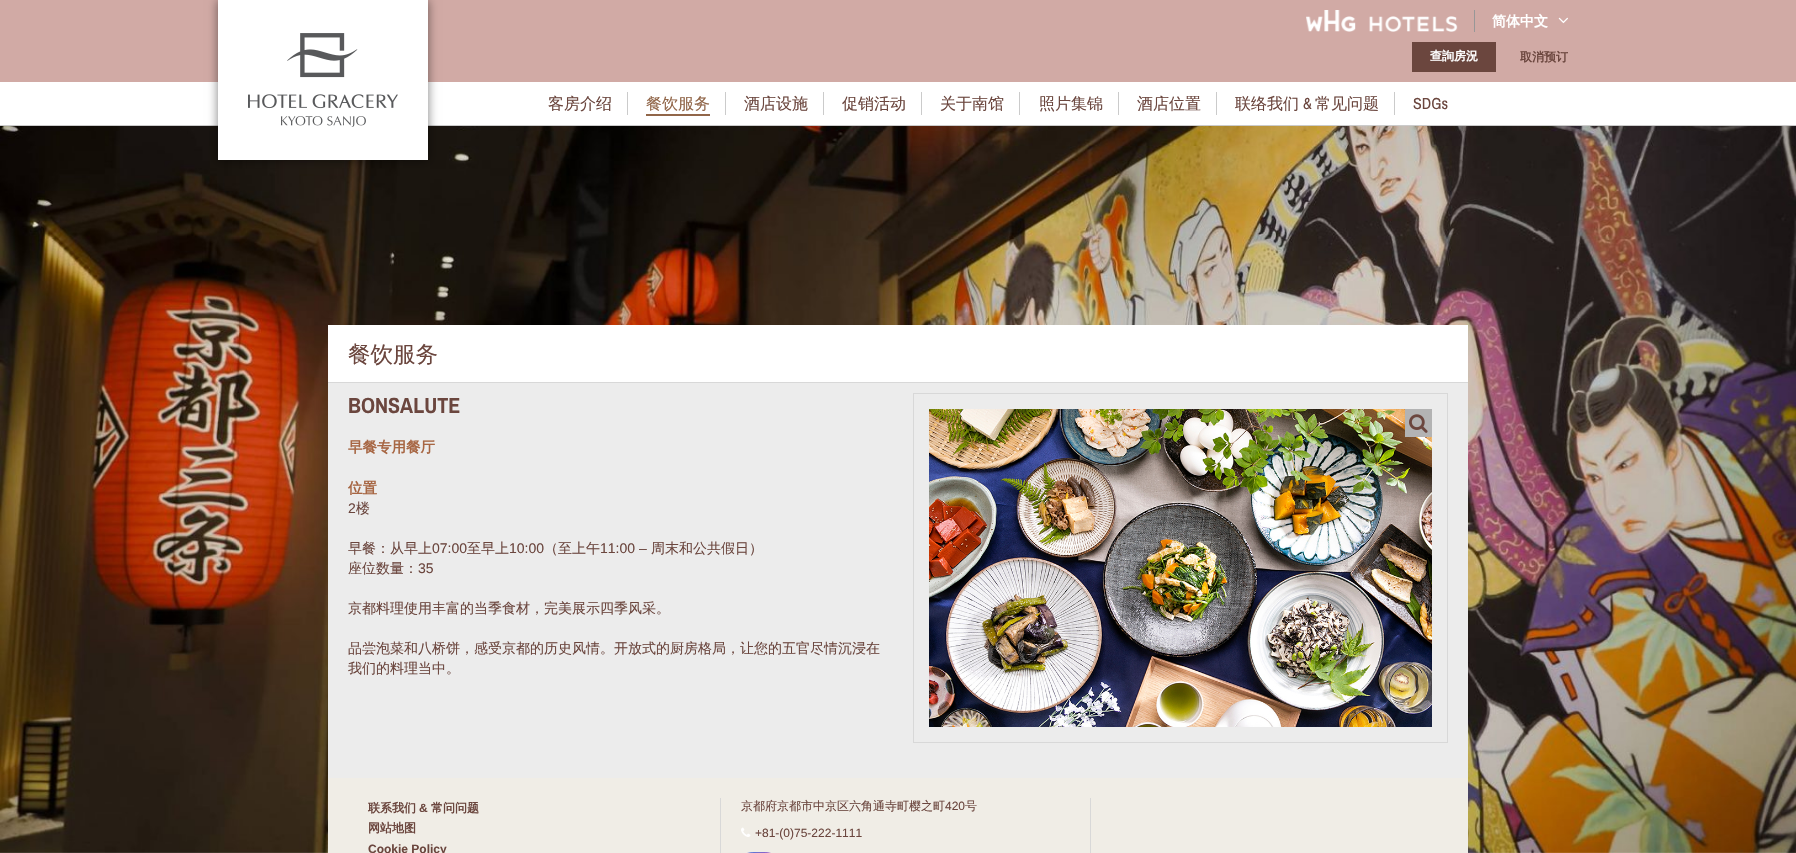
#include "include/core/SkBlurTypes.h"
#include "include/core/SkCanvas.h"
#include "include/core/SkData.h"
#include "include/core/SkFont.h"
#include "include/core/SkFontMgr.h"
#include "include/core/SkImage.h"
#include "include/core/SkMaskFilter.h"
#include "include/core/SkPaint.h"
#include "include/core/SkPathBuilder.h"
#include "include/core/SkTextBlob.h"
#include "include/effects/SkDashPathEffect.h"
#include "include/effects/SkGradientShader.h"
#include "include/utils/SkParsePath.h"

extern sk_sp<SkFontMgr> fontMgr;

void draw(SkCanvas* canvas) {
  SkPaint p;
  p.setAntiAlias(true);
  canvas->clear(SK_ColorWHITE);
  p.setColor(SkColorSetRGB(209, 170, 165));
  canvas->drawRect(SkRect::MakeLTRB(0, 0, 1796, 82), p);
  p.setColor(SkColorSetRGB(203, 203, 203));
  canvas->drawRect(SkRect::MakeLTRB(0, 125, 1796, 126), p);
  canvas->drawImageRect(SkImages::DeferredFromEncodedData(SkData::MakeFromFileName("images/4.png")), SkRect::MakeLTRB(0, 126, 1796, 853), SkSamplingOptions());
  p.setColor(SkColorSetARGB(128, 0, 0, 0));
  p.setMaskFilter(SkMaskFilter::MakeBlur(kNormal_SkBlurStyle, 5));
  canvas->drawRect(SkRect::MakeLTRB(218, 0, 428, 160), p);
  p.setMaskFilter(nullptr);
  p.setColor(SK_ColorWHITE);
  canvas->drawRect(SkRect::MakeLTRB(218, 0, 428, 160), p);
  canvas->drawImageRect(SkImages::DeferredFromEncodedData(SkData::MakeFromFileName("images/1.png")), SkRect::MakeLTRB(248, 33, 398, 127), SkSamplingOptions());
  p.setColor(SkColorSetRGB(151, 151, 151));
  canvas->drawRect(SkRect::MakeLTRB(1474, 10, 1475, 32), p);
  canvas->drawImageRect(SkImages::DeferredFromEncodedData(SkData::MakeFromFileName("images/2.png")), SkRect::MakeLTRB(1306, 10, 1458, 32), SkSamplingOptions());
  canvas->drawImageRect(SkImages::DeferredFromEncodedData(SkData::MakeFromFileName("images/3.png")), SkRect::MakeLTRB(1558, 17, 1568, 24), SkSamplingOptions());
  p.setColor(SkColorSetRGB(107, 70, 62));
  canvas->drawRect(SkRect::MakeLTRB(1412, 42, 1496, 72), p);
  p.setColor(SkColorSetRGB(203, 203, 203));
  canvas->drawRect(SkRect::MakeLTRB(627, 92, 628, 115), p);
  canvas->drawRect(SkRect::MakeLTRB(725, 92, 726, 115), p);
  p.setColor(SkColorSetRGB(145, 102, 73));
  canvas->drawRect(SkRect::MakeLTRB(646, 114, 710, 116), p);
  p.setColor(SkColorSetRGB(203, 203, 203));
  canvas->drawRect(SkRect::MakeLTRB(823, 92, 824, 115), p);
  canvas->drawRect(SkRect::MakeLTRB(921, 92, 922, 115), p);
  canvas->drawRect(SkRect::MakeLTRB(1019, 92, 1020, 115), p);
  canvas->drawRect(SkRect::MakeLTRB(1118, 92, 1119, 115), p);
  canvas->drawRect(SkRect::MakeLTRB(1216, 92, 1217, 115), p);
  canvas->drawRect(SkRect::MakeLTRB(1394, 92, 1395, 115), p);
  p.setColor(SK_ColorWHITE);
  canvas->drawRect(SkRect::MakeLTRB(328, 325, 1468, 382), p);
  p.setColor(SkColorSetRGB(216, 216, 216));
  canvas->drawRect(SkRect::MakeLTRB(328, 382, 1468, 383), p);
  p.setColor(SkColorSetRGB(236, 236, 236));
  canvas->drawRect(SkRect::MakeLTRB(328, 383, 1468, 778), p);
  p.setStyle(SkPaint::kStroke_Style);
  p.setStrokeWidth(1);
  p.setColor(SkColorSetRGB(216, 216, 216));
  canvas->drawRect(SkRect::MakeLTRB(913.5f, 393.5f, 1447.5f, 742.5f), p);
  canvas->drawImageRect(SkImages::DeferredFromEncodedData(SkData::MakeFromFileName("images/5.png")), SkRect::MakeLTRB(929, 409, 1432, 727), SkSamplingOptions());
  p.setStyle(SkPaint::kFill_Style);
  p.setColor(SkColorSetRGB(179, 179, 179));
  canvas->drawRect(SkRect::MakeLTRB(1405, 409, 1432, 437), p);
  canvas->drawImageRect(SkImages::DeferredFromEncodedData(SkData::MakeFromFileName("images/6.png")), SkRect::MakeLTRB(1409, 414, 1428, 433), SkSamplingOptions());
  p.setColor(SkColorSetRGB(240, 237, 230));
  canvas->drawRect(SkRect::MakeLTRB(328, 778, 1468, 853), p);
  p.setColor(SkColorSetRGB(216, 216, 216));
  canvas->drawRect(SkRect::MakeLTRB(1090, 798, 1091, 853), p);
  canvas->drawRect(SkRect::MakeLTRB(720, 798, 721, 853), p);
  canvas->drawImageRect(SkImages::DeferredFromEncodedData(SkData::MakeFromFileName("images/7.png")), SkRect::MakeLTRB(741, 827, 751, 837), SkSamplingOptions());
  canvas->drawImageRect(SkImages::DeferredFromEncodedData(SkData::MakeFromFileName("images/8.png")), SkRect::MakeLTRB(747, 852, 771, 853), SkSamplingOptions());
  SkFont font1(fontMgr->matchFamilyStyle("WenQuanYi Zen Hei", SkFontStyle::Bold()), 14);
  font1.setSubpixel(true);
  p.setColor(SK_ColorWHITE);
  canvas->drawString("简体中文", 1492, 26, font1, p);
  SkFont font2(fontMgr->matchFamilyStyle("WenQuanYi Zen Hei", SkFontStyle::Bold()), 12);
  font2.setSubpixel(true);
  canvas->drawString("查詢房況", 1430, 60, font2, p);
  p.setColor(SkColorSetRGB(107, 70, 62));
  canvas->drawString("取消预订", 1520, 61, font2, p);
  SkFont font3(fontMgr->matchFamilyStyle("WenQuanYi Zen Hei", SkFontStyle(500, SkFontStyle::kNormal_Width, SkFontStyle::kUpright_Slant)), 16);
  font3.setSubpixel(true);
  canvas->drawString("客房介绍", 548, 109, font3, p);
  p.setColor(SkColorSetRGB(145, 102, 73));
  canvas->drawString("餐饮服务", 646, 109, font3, p);
  p.setColor(SkColorSetRGB(107, 70, 62));
  canvas->drawString("酒店设施", 744, 109, font3, p);
  canvas->drawString("促销活动", 842, 109, font3, p);
  canvas->drawString("关于南馆", 940, 109, font3, p);
  canvas->drawString("照片集锦", 1039, 109, font3, p);
  canvas->drawString("酒店位置", 1137, 109, font3, p);
  canvas->drawString("联络我们", 1235, 109, font3, p);
  SkFont font4(fontMgr->matchFamilyStyle("Archivo Narrow", SkFontStyle::Normal()), 16);
  font4.setSubpixel(true);
  canvas->drawString("&", 1303, 109, font4, p);
  canvas->drawString("常见问题", 1315, 109, font3, p);
  canvas->drawString("SDGs", 1413, 109, font4, p);
  SkFont font5(fontMgr->matchFamilyStyle("WenQuanYi Zen Hei", SkFontStyle(500, SkFontStyle::kNormal_Width, SkFontStyle::kUpright_Slant)), 22.5f);
  font5.setSubpixel(true);
  canvas->drawString("餐饮服务", 348, 362, font5, p);
  SkFont font6(fontMgr->matchFamilyStyle("Archivo Narrow", SkFontStyle::Bold()), 22);
  font6.setSubpixel(true);
  canvas->drawString("BONSALUTE", 348, 413, font6, p);
  SkFont font7(fontMgr->matchFamilyStyle("WenQuanYi Zen Hei", SkFontStyle::Bold()), 14.5f);
  font7.setSubpixel(true);
  p.setColor(SkColorSetRGB(167, 102, 67));
  canvas->drawString("早餐专用餐厅", 348, 452, font7, p);
  canvas->drawString("位置", 348, 493, font7, p);
  SkFont font8(fontMgr->matchFamilyStyle("Liberation Sans", SkFontStyle::Normal()), 14);
  font8.setSubpixel(true);
  p.setColor(SkColorSetRGB(107, 70, 62));
  canvas->drawString("2", 348, 513, font8, p);
  SkFont font9(fontMgr->matchFamilyStyle("WenQuanYi Zen Hei", SkFontStyle(500, SkFontStyle::kNormal_Width, SkFontStyle::kUpright_Slant)), 14);
  font9.setSubpixel(true);
  canvas->drawString("楼", 356, 513, font9, p);
  canvas->drawString("早餐：从早上", 348, 553, font9, p);
  canvas->drawString("07:00", 432, 553, font8, p);
  canvas->drawString("至早上", 467, 553, font9, p);
  canvas->drawString("10:00", 509, 553, font8, p);
  canvas->drawString("（至上午", 544, 553, font9, p);
  canvas->drawString("11:00 –", 600, 553, font8, p);
  canvas->drawString("周末和公共假日）", 651, 553, font9, p);
  canvas->drawString("座位数量：", 348, 573, font9, p);
  canvas->drawString("35", 418, 573, font8, p);
  canvas->drawString("京都料理使用丰富的当季食材，完美展示四季风采。", 348, 613, font9, p);
  canvas->drawString("品尝泡菜和八桥饼，感受京都的历史风情。开放式的厨房格局，让您的五官尽情沉浸在", 348, 653, font9, p);
  canvas->drawString("我们的料理当中。", 348, 673, font9, p);
  canvas->drawString("联系我们", 368, 812, font2, p);
  SkFont font10(fontMgr->matchFamilyStyle("Liberation Sans", SkFontStyle::Bold()), 12);
  font10.setSubpixel(true);
  canvas->drawString("&", 419, 812, font10, p);
  canvas->drawString("常问问题", 431, 812, font2, p);
  canvas->drawString("网站地图", 368, 832, font2, p);
  canvas->drawString("Cookie Policy", 368, 853, font10, p);
  SkFont font11(fontMgr->matchFamilyStyle("WenQuanYi Zen Hei", SkFontStyle(500, SkFontStyle::kNormal_Width, SkFontStyle::kUpright_Slant)), 12);
  font11.setSubpixel(true);
  canvas->drawString("京都府京都市中京区六角通寺町樱之町", 741, 810, font11, p);
  SkFont font12(fontMgr->matchFamilyStyle("Liberation Sans", SkFontStyle::Normal()), 12);
  font12.setSubpixel(true);
  canvas->drawString("420", 945, 810, font12, p);
  canvas->drawString("号", 965, 810, font11, p);
  canvas->drawString("+81-(0)75-222-1111", 755, 837, font12, p);
}
